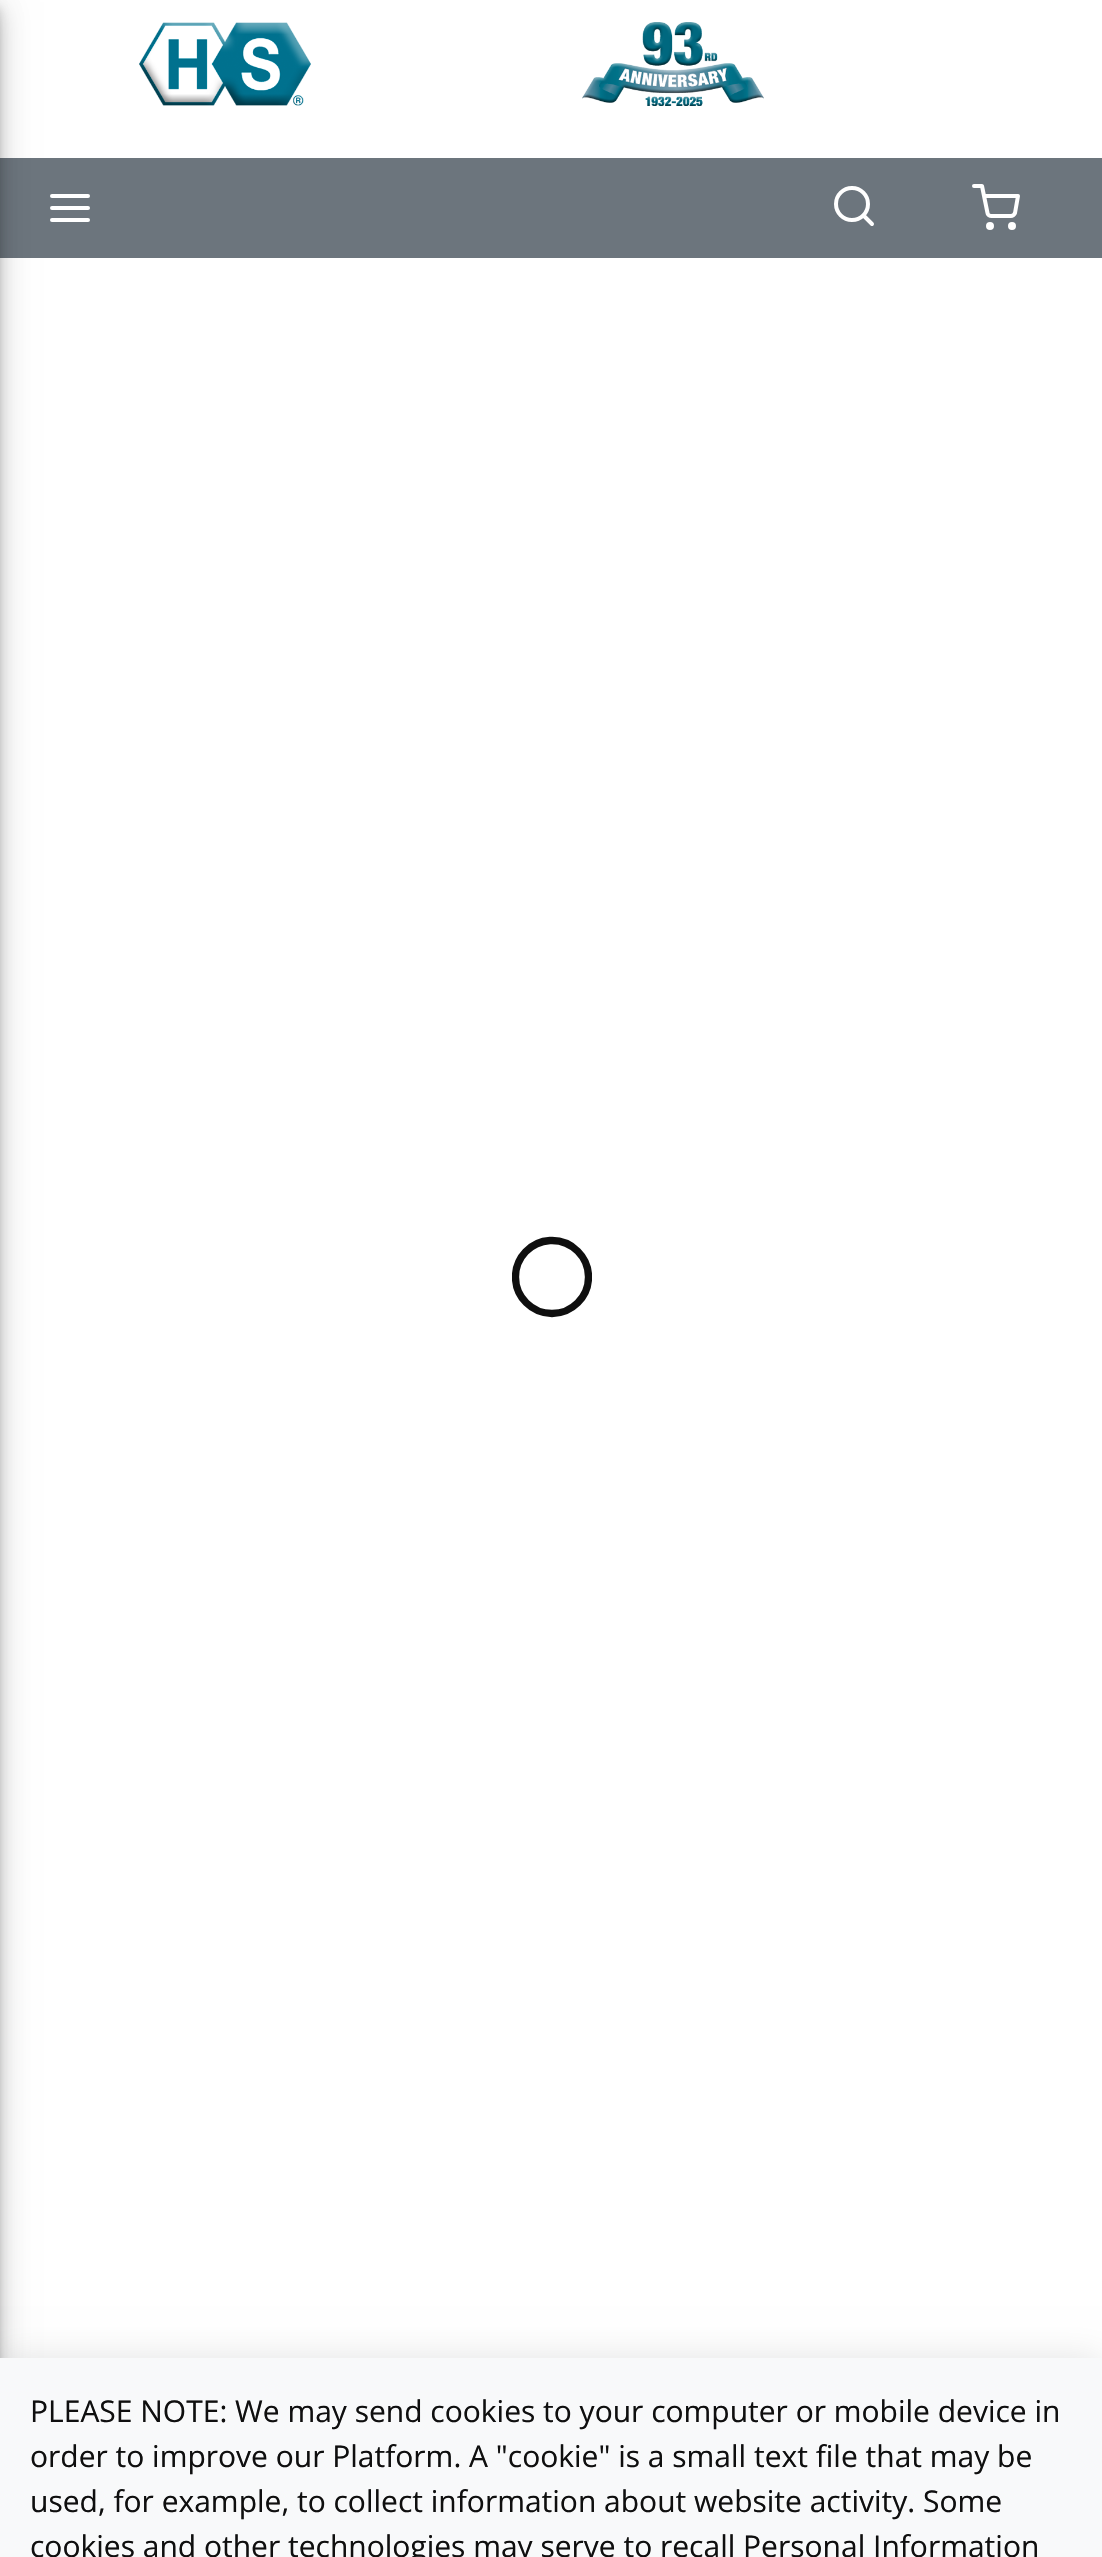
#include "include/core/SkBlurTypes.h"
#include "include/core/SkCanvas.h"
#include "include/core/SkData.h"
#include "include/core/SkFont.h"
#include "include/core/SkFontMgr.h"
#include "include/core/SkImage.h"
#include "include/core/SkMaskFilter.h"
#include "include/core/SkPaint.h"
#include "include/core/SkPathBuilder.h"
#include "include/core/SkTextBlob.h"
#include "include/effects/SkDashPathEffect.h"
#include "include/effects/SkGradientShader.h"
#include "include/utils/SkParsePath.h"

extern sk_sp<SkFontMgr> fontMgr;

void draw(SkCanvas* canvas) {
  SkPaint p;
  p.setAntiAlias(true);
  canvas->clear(SK_ColorWHITE);
  p.setColor(SkColorSetRGB(108, 117, 125));
  canvas->drawRect(SkRect::MakeLTRB(0, 158, 1102, 258), p);
  p.setStyle(SkPaint::kStroke_Style);
  p.setStrokeWidth(4);
  p.setStrokeCap(SkPaint::kRound_Cap);
  p.setStrokeJoin(SkPaint::kRound_Join);
  p.setColor(SK_ColorWHITE);
  canvas->drawPath(SkPathBuilder().moveTo(52, 208).lineTo(88, 208).moveTo(52, 196).lineTo(88, 196).moveTo(52, 220).lineTo(88, 220).detach(), p);
  p.setStyle(SkPaint::kFill_Style);
  p.setColor(SkColorSetARGB(31, 0, 0, 0));
  p.setMaskFilter(SkMaskFilter::MakeBlur(kNormal_SkBlurStyle, 18));
  canvas->drawRect(SkRect::MakeLTRB(-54, 2, 0, 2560), p);
  p.setMaskFilter(nullptr);
  p.setColor(SkColorSetARGB(36, 0, 0, 0));
  p.setMaskFilter(SkMaskFilter::MakeBlur(kNormal_SkBlurStyle, 10));
  canvas->drawRect(SkRect::MakeLTRB(-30, 12, 0, 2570), p);
  p.setMaskFilter(nullptr);
  p.setColor(SkColorSetARGB(51, 0, 0, 0));
  p.setMaskFilter(SkMaskFilter::MakeBlur(kNormal_SkBlurStyle, 5));
  canvas->drawRect(SkRect::MakeLTRB(-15, 8, -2, 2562), p);
  p.setMaskFilter(nullptr);
  p.setStyle(SkPaint::kStroke_Style);
  p.setStrokeCap(SkPaint::kButt_Cap);
  p.setStrokeJoin(SkPaint::kMiter_Join);
  p.setColor(SK_ColorWHITE);
  canvas->drawCircle(852, 204, 16, p);
  p.setStrokeCap(SkPaint::kRound_Cap);
  p.setStrokeJoin(SkPaint::kRound_Join);
  canvas->drawPath(SkPathBuilder().moveTo(872, 224).lineTo(863.5f, 215.5f).detach(), p);
  p.setStrokeCap(SkPaint::kButt_Cap);
  p.setStrokeJoin(SkPaint::kMiter_Join);
  canvas->drawCircle(990, 226, 2, p);
  canvas->drawCircle(1012, 226, 2, p);
  p.setStrokeCap(SkPaint::kRound_Cap);
  p.setStrokeJoin(SkPaint::kRound_Join);
  canvas->drawPath(SkPathBuilder().moveTo(974, 186).lineTo(982, 186).lineTo(987.5f, 213).cubicTo(987.5f, 214.5f, 989.5f, 216, 991.5f, 216).lineTo(1011, 216).cubicTo(1012.5f, 216, 1014.5f, 214.5f, 1015, 213).lineTo(1018, 196).lineTo(984, 196).detach(), p);
  canvas->drawImageRect(SkImages::DeferredFromEncodedData(SkData::MakeFromFileName("images/1.png")), SkRect::MakeLTRB(139, 22, 311, 106), SkSamplingOptions());
  canvas->drawImageRect(SkImages::DeferredFromEncodedData(SkData::MakeFromFileName("images/2.png")), SkRect::MakeLTRB(582, 22, 764, 106), SkSamplingOptions());
  canvas->save();
  canvas->clipRect(SkRect::MakeLTRB(512, 298, 592, 2256));
  p.setStrokeWidth(7.3f);
  p.setStrokeJoin(SkPaint::kMiter_Join);
  p.setColor(SkColorSetRGB(15, 15, 15));
  canvas->drawPath(SkPathBuilder().moveTo(552, 1240.5f).cubicTo(572, 1240.5f, 588.5f, 1257, 588.5f, 1277).cubicTo(588.5f, 1297, 572, 1313.5f, 552, 1313.5f).cubicTo(532, 1313.5f, 515.5f, 1297, 515.5f, 1277).cubicTo(515.5f, 1257.5f, 531, 1241.5f, 550, 1240.5f).detach(), p);
  canvas->restore();
  p.setStyle(SkPaint::kFill_Style);
  p.setColor(SkColorSetARGB(31, 0, 0, 0));
  p.setMaskFilter(SkMaskFilter::MakeBlur(kNormal_SkBlurStyle, 18));
  canvas->drawRect(SkRect::MakeLTRB(0, 2360, 1102, 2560), p);
  p.setMaskFilter(nullptr);
  p.setColor(SkColorSetRGB(248, 249, 250));
  canvas->drawRect(SkRect::MakeLTRB(0, 2358, 1102, 2557), p);
  SkFont font1(fontMgr->matchFamilyStyle("Open Sans", SkFontStyle::Normal()), 30);
  font1.setSubpixel(true);
  p.setColor(SkColorSetRGB(15, 15, 15));
  canvas->drawString("PLEASE NOTE: We may send cookies to your computer or mobile device in", 30, 2422, font1, p);
  canvas->drawString("order to improve our Platform. A \"cookie\" is a small text file that may be", 30, 2467, font1, p);
  canvas->drawString("used, for example, to collect information about website activity. Some", 30, 2512, font1, p);
  canvas->drawString("cookies and other technologies may serve to recall Personal Information", 30, 2557, font1, p);
}
